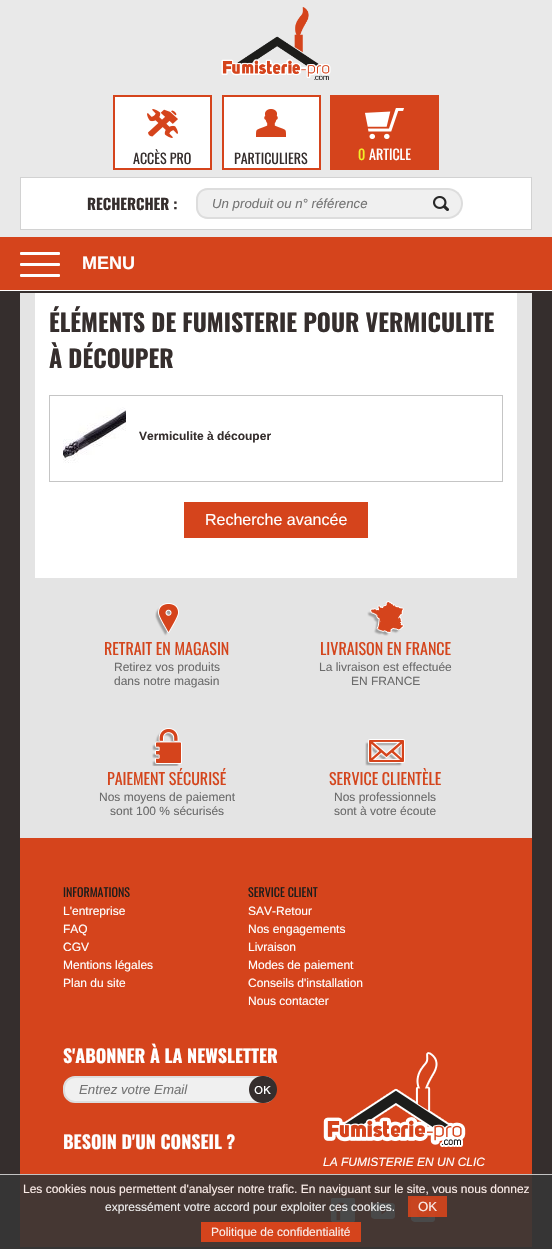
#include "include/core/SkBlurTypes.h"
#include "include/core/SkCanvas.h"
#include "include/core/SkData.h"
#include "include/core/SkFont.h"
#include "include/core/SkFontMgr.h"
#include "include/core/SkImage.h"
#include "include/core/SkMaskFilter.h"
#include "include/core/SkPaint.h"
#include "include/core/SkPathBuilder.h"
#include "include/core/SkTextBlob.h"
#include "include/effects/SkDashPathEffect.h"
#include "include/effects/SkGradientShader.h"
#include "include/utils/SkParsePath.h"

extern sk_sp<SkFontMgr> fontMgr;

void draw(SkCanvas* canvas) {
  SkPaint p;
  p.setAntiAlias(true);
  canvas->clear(SK_ColorWHITE);
  p.setColor(SkColorSetRGB(233, 233, 233));
  canvas->drawRect(SkRect::MakeLTRB(0, 0, 552, 237), p);
  canvas->drawImageRect(SkImages::DeferredFromEncodedData(SkData::MakeFromFileName("images/1.png")), SkRect::MakeLTRB(221, 7, 331, 80), SkSamplingOptions());
  p.setColor(SK_ColorWHITE);
  canvas->drawRect(SkRect::MakeLTRB(115, 97, 210, 168), p);
  canvas->drawImageRect(SkImages::DeferredFromEncodedData(SkData::MakeFromFileName("images/2.png")), SkRect::MakeLTRB(147, 109, 178, 138), SkSamplingOptions());
  p.setStyle(SkPaint::kStroke_Style);
  p.setStrokeWidth(2);
  p.setColor(SkColorSetRGB(213, 68, 28));
  canvas->drawRect(SkRect::MakeLTRB(114, 96, 211, 169), p);
  p.setStyle(SkPaint::kFill_Style);
  p.setColor(SK_ColorWHITE);
  canvas->drawRect(SkRect::MakeLTRB(224, 97, 319, 168), p);
  canvas->drawImageRect(SkImages::DeferredFromEncodedData(SkData::MakeFromFileName("images/3.png")), SkRect::MakeLTRB(256, 109, 286, 137), SkSamplingOptions());
  p.setStyle(SkPaint::kStroke_Style);
  p.setColor(SkColorSetRGB(213, 68, 28));
  canvas->drawRect(SkRect::MakeLTRB(223, 96, 320, 169), p);
  p.setStyle(SkPaint::kFill_Style);
  canvas->drawRect(SkRect::MakeLTRB(330, 95, 439, 170), p);
  canvas->drawImageRect(SkImages::DeferredFromEncodedData(SkData::MakeFromFileName("images/4.png")), SkRect::MakeLTRB(365, 108, 404, 139), SkSamplingOptions());
  p.setColor(SK_ColorWHITE);
  canvas->drawRect(SkRect::MakeLTRB(20.5f, 177.5f, 531.5f, 229.5f), p);
  p.setStyle(SkPaint::kStroke_Style);
  p.setStrokeWidth(1);
  p.setColor(SkColorSetRGB(210, 210, 210));
  canvas->drawRect(SkRect::MakeLTRB(20.5f, 177.5f, 531.5f, 229.5f), p);
  p.setStyle(SkPaint::kFill_Style);
  p.setColor(SkColorSetRGB(240, 240, 240));
  canvas->drawPath(SkPathBuilder().moveTo(208, 188).lineTo(432, 188).lineTo(432, 219).lineTo(208, 219).cubicTo(201.5f, 219, 196, 213.5f, 196, 207).lineTo(196, 200).cubicTo(196, 193.5f, 201.5f, 188, 208, 188).close().detach(), p);
  p.setColor(SkColorSetRGB(221, 221, 221));
  canvas->drawPath(SkPathBuilder(SkPathFillType::kEvenOdd).moveTo(208, 188).lineTo(432, 188).lineTo(432, 219).lineTo(208, 219).cubicTo(201, 219, 196, 214, 196, 207).lineTo(196, 200).cubicTo(196, 193, 201, 188, 208, 188).close().moveTo(208, 190).lineTo(432, 190).lineTo(432, 217).lineTo(208, 217).cubicTo(202, 217, 198, 213, 198, 207).lineTo(198, 200).cubicTo(198, 194, 202, 190, 208, 190).close().detach(), p);
  canvas->drawImageRect(SkImages::DeferredFromEncodedData(SkData::MakeFromFileName("images/5.png")), SkRect::MakeLTRB(432, 188, 463, 219), SkSamplingOptions());
  p.setColor(SkColorSetRGB(213, 68, 28));
  canvas->drawRect(SkRect::MakeLTRB(0, 237, 552, 290), p);
  p.setColor(SK_ColorWHITE);
  canvas->drawRoundRect(SkRect::MakeLTRB(20, 252, 60, 255), 1, 1, p);
  canvas->drawRoundRect(SkRect::MakeLTRB(20, 263, 60, 266), 1, 1, p);
  canvas->drawRoundRect(SkRect::MakeLTRB(20, 274, 60, 277), 1, 1, p);
  p.setColor(SkColorSetRGB(53, 46, 45));
  canvas->drawRect(SkRect::MakeLTRB(0, 291, 552, 1249), p);
  p.setColor(SK_ColorWHITE);
  canvas->drawRect(SkRect::MakeLTRB(35, 293, 517, 578), p);
  p.setColor(SkColorSetRGB(228, 228, 228));
  canvas->drawRect(SkRect::MakeLTRB(517, 293, 532, 578), p);
  canvas->drawRect(SkRect::MakeLTRB(20, 293, 35, 578), p);
  p.setStyle(SkPaint::kStroke_Style);
  p.setColor(SkColorSetRGB(197, 197, 197));
  canvas->drawRect(SkRect::MakeLTRB(49.5f, 395.5f, 502.5f, 481.5f), p);
  canvas->drawImageRect(SkImages::DeferredFromEncodedData(SkData::MakeFromFileName("images/6.png")), SkRect::MakeLTRB(63, 407, 126, 463), SkSamplingOptions());
  p.setStyle(SkPaint::kFill_Style);
  p.setColor(SkColorSetRGB(213, 68, 28));
  canvas->drawRect(SkRect::MakeLTRB(184, 502, 368, 538), p);
  p.setColor(SkColorSetRGB(228, 228, 228));
  canvas->drawRect(SkRect::MakeLTRB(20, 578, 532, 838), p);
  canvas->drawImageRect(SkImages::DeferredFromEncodedData(SkData::MakeFromFileName("images/7.png")), SkRect::MakeLTRB(155, 603, 179, 636), SkSamplingOptions());
  canvas->drawImageRect(SkImages::DeferredFromEncodedData(SkData::MakeFromFileName("images/8.png")), SkRect::MakeLTRB(367, 601, 404, 636), SkSamplingOptions());
  canvas->drawImageRect(SkImages::DeferredFromEncodedData(SkData::MakeFromFileName("images/9.png")), SkRect::MakeLTRB(152, 728, 182, 766), SkSamplingOptions());
  canvas->drawImageRect(SkImages::DeferredFromEncodedData(SkData::MakeFromFileName("images/10.png")), SkRect::MakeLTRB(365, 739, 405, 766), SkSamplingOptions());
  p.setColor(SkColorSetRGB(213, 68, 28));
  canvas->drawRect(SkRect::MakeLTRB(20, 838, 532, 1247), p);
  p.setColor(SkColorSetRGB(240, 240, 240));
  canvas->drawRoundRect(SkRect::MakeLTRB(64, 1077, 275, 1102), 11, 11, p);
  p.setStyle(SkPaint::kStroke_Style);
  p.setStrokeWidth(2);
  p.setColor(SkColorSetRGB(221, 221, 221));
  canvas->drawRoundRect(SkRect::MakeLTRB(64, 1077, 275, 1102), 11, 11, p);
  canvas->drawImageRect(SkImages::DeferredFromEncodedData(SkData::MakeFromFileName("images/11.png")), SkRect::MakeLTRB(249, 1076, 277, 1103), SkSamplingOptions());
  canvas->drawImageRect(SkImages::DeferredFromEncodedData(SkData::MakeFromFileName("images/12.png")), SkRect::MakeLTRB(323, 1052, 466, 1147), SkSamplingOptions());
  canvas->drawImageRect(SkImages::DeferredFromEncodedData(SkData::MakeFromFileName("images/13.png")), SkRect::MakeLTRB(331, 1198, 355, 1222), SkSamplingOptions());
  canvas->drawImageRect(SkImages::DeferredFromEncodedData(SkData::MakeFromFileName("images/14.png")), SkRect::MakeLTRB(371, 1203, 395, 1219), SkSamplingOptions());
  canvas->drawImageRect(SkImages::DeferredFromEncodedData(SkData::MakeFromFileName("images/15.png")), SkRect::MakeLTRB(411, 1198, 435, 1222), SkSamplingOptions());
  p.setStyle(SkPaint::kFill_Style);
  p.setColor(SkColorSetARGB(230, 53, 53, 53));
  canvas->drawRect(SkRect::MakeLTRB(0, 1174, 552, 1249), p);
  p.setColor(SkColorSetARGB(230, 210, 210, 210));
  canvas->drawRect(SkRect::MakeLTRB(0, 1174, 552, 1175), p);
  p.setColor(SkColorSetARGB(230, 213, 68, 28));
  canvas->drawRect(SkRect::MakeLTRB(408, 1196, 447, 1217), p);
  p.setColor(SkColorSetRGB(213, 68, 28));
  canvas->drawRect(SkRect::MakeLTRB(201, 1222, 361, 1242), p);
  SkFont font1(fontMgr->matchFamilyStyle("Oswald", SkFontStyle::Normal()), 14);
  font1.setSubpixel(true);
  p.setColor(SkColorSetRGB(53, 46, 45));
  canvas->drawString("ACCÈS PRO", 133, 164, font1, p);
  canvas->drawString("PARTICULIERS", 234, 164, font1, p);
  p.setColor(SkColorSetRGB(241, 239, 40));
  canvas->drawString("0", 358, 160, font1, p);
  p.setColor(SK_ColorWHITE);
  canvas->drawString("ARTICLE", 369, 160, font1, p);
  SkFont font2(fontMgr->matchFamilyStyle("Oswald", SkFontStyle::Bold()), 15);
  font2.setSubpixel(true);
  p.setColor(SkColorSetRGB(53, 46, 45));
  canvas->drawString("RECHERCHER :", 87, 210, font2, p);
  SkFont font3(fontMgr->matchFamilyStyle("Liberation Sans", SkFontStyle::Italic()), 13.25f);
  font3.setSubpixel(true);
  p.setColor(SkColorSetRGB(117, 117, 117));
  canvas->drawString("Un produit ou n° référence", 212, 208, font3, p);
  SkFont font4(fontMgr->matchFamilyStyle("Liberation Sans", SkFontStyle::Bold()), 18);
  font4.setSubpixel(true);
  p.setColor(SK_ColorWHITE);
  canvas->drawString("MENU", 82, 269, font4, p);
  SkFont font5(fontMgr->matchFamilyStyle("Oswald", SkFontStyle::Bold()), 24);
  font5.setSubpixel(true);
  p.setColor(SkColorSetRGB(53, 46, 45));
  canvas->drawString("ÉLÉMENTS DE FUMISTERIE POUR VERMICULITE", 49, 332, font5, p);
  canvas->drawString("À DÉCOUPER", 49, 368, font5, p);
  SkFont font6(fontMgr->matchFamilyStyle("Liberation Sans", SkFontStyle::Bold()), 12);
  font6.setSubpixel(true);
  canvas->drawString("Vermiculite à découper", 139, 440, font6, p);
  SkFont font7(fontMgr->matchFamilyStyle("Liberation Sans", SkFontStyle::Normal()), 16);
  font7.setSubpixel(true);
  p.setColor(SK_ColorWHITE);
  canvas->drawString("Recherche avancée", 205, 525, font7, p);
  SkFont font8(fontMgr->matchFamilyStyle("Oswald", SkFontStyle::Normal()), 16);
  font8.setSubpixel(true);
  p.setColor(SkColorSetRGB(212, 69, 28));
  canvas->drawString("RETRAIT EN MAGASIN", 104, 655, font8, p);
  SkFont font9(fontMgr->matchFamilyStyle("Liberation Sans", SkFontStyle::Normal()), 12);
  font9.setSubpixel(true);
  p.setColor(SkColorSetRGB(107, 107, 107));
  canvas->drawString("Retirez vos produits", 114, 671, font9, p);
  canvas->drawString("dans notre magasin", 114, 685, font9, p);
  p.setColor(SkColorSetRGB(212, 69, 28));
  canvas->drawString("LIVRAISON EN FRANCE", 320, 655, font8, p);
  p.setColor(SkColorSetRGB(107, 107, 107));
  canvas->drawString("La livraison est effectuée", 319, 671, font9, p);
  canvas->drawString("EN FRANCE", 351, 685, font9, p);
  p.setColor(SkColorSetRGB(212, 69, 28));
  canvas->drawString("PAIEMENT SÉCURISÉ", 107, 785, font8, p);
  p.setColor(SkColorSetRGB(107, 107, 107));
  canvas->drawString("Nos moyens de paiement", 99, 801, font9, p);
  canvas->drawString("sont 100 % sécurisés", 110, 815, font9, p);
  p.setColor(SkColorSetRGB(212, 69, 28));
  canvas->drawString("SERVICE CLIENTÈLE", 329, 785, font8, p);
  p.setColor(SkColorSetRGB(107, 107, 107));
  canvas->drawString("Nos professionnels", 334, 801, font9, p);
  canvas->drawString("sont à votre écoute", 334, 815, font9, p);
  SkFont font10(fontMgr->matchFamilyStyle("Oswald", SkFontStyle::Normal()), 12);
  font10.setSubpixel(true);
  p.setColor(SkColorSetRGB(29, 29, 27));
  canvas->drawString("INFORMATIONS", 63, 897, font10, p);
  p.setColor(SK_ColorWHITE);
  canvas->drawString("L'entreprise", 63, 915, font9, p);
  canvas->drawString("FAQ", 63, 933, font9, p);
  canvas->drawString("CGV", 63, 951, font9, p);
  canvas->drawString("Mentions légales", 63, 969, font9, p);
  canvas->drawString("Plan du site", 63, 987, font9, p);
  p.setColor(SkColorSetRGB(29, 29, 27));
  canvas->drawString("SERVICE CLIENT", 248, 897, font10, p);
  p.setColor(SK_ColorWHITE);
  canvas->drawString("SAV-Retour", 248, 915, font9, p);
  canvas->drawString("Nos engagements", 248, 933, font9, p);
  canvas->drawString("Livraison", 248, 951, font9, p);
  canvas->drawString("Modes de paiement", 248, 969, font9, p);
  canvas->drawString("Conseils d'installation", 248, 987, font9, p);
  canvas->drawString("Nous contacter", 248, 1005, font9, p);
  SkFont font11(fontMgr->matchFamilyStyle("Oswald", SkFontStyle::Bold()), 18);
  font11.setSubpixel(true);
  canvas->drawString("S'ABONNER À LA NEWSLETTER", 63, 1063, font11, p);
  p.setColor(SkColorSetRGB(117, 117, 117));
  canvas->drawString("Entrez votre Email", 79, 1094, font3, p);
  p.setColor(SK_ColorWHITE);
  canvas->drawString("BESOIN D'UN CONSEIL ?", 63, 1149, font11, p);
  SkFont font12(fontMgr->matchFamilyStyle("Liberation Sans", SkFontStyle::Italic()), 12);
  font12.setSubpixel(true);
  canvas->drawString("LA FUMISTERIE EN UN CLIC", 323, 1166, font12, p);
  p.setColor(SkColorSetRGB(251, 236, 232));
  canvas->drawString("Les cookies nous permettent d'analyser notre trafic. En naviguant sur le site, vous nous donnez", 23, 1193, font9, p);
  p.setColor(SkColorSetRGB(236, 235, 235));
  canvas->drawString("expressément votre accord pour exploiter ces cookies.", 105, 1211, font9, p);
  SkFont font13(fontMgr->matchFamilyStyle("Liberation Sans", SkFontStyle::Normal()), 13.25f);
  font13.setSubpixel(true);
  p.setColor(SkColorSetRGB(251, 236, 232));
  canvas->drawString("OK", 418, 1211, font13, p);
  canvas->drawString("Politique de confidentialité", 211, 1236, font9, p);
}
